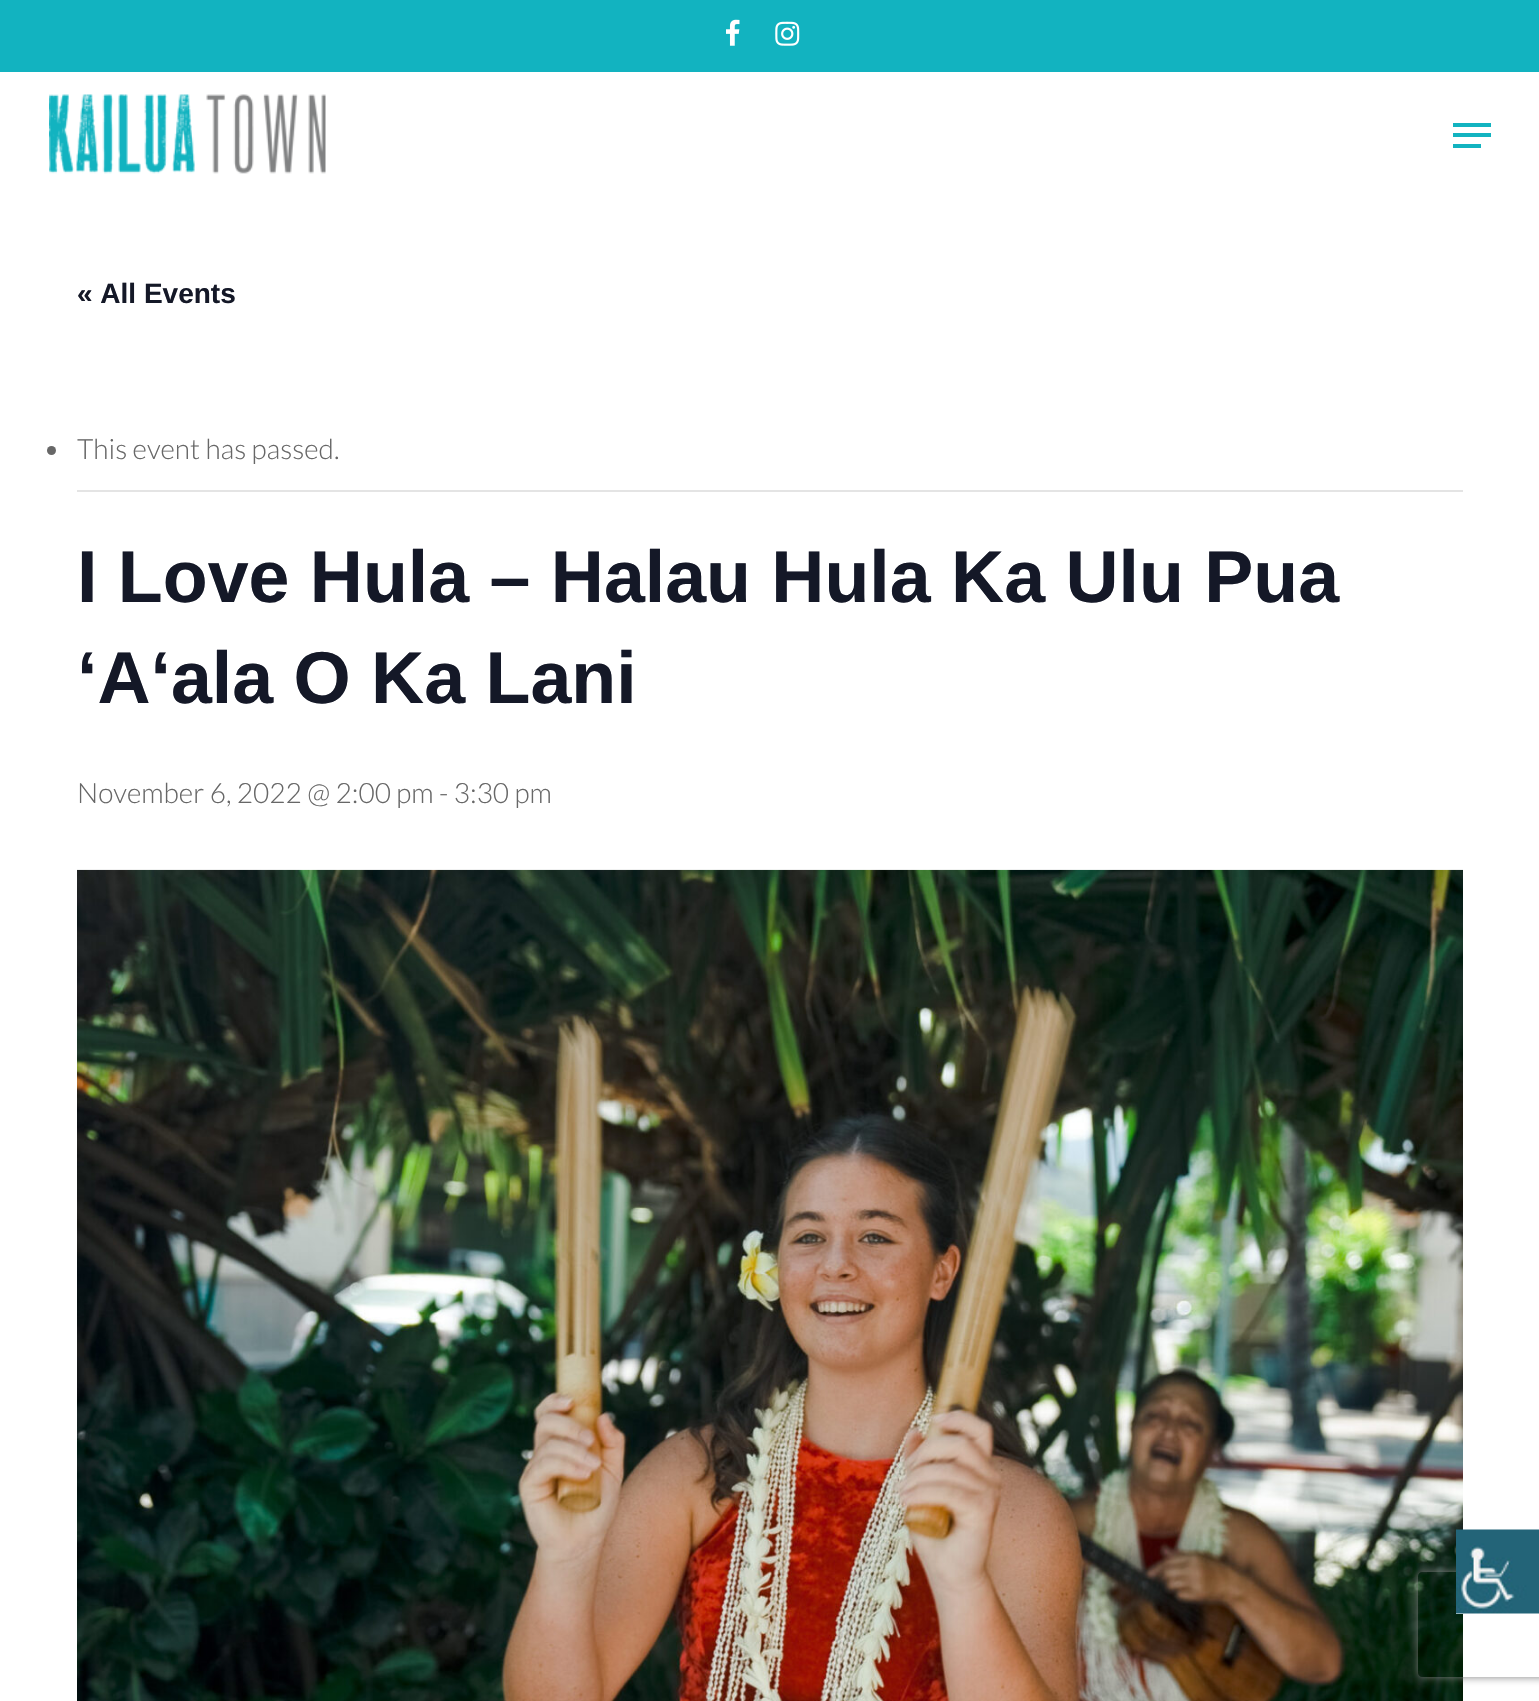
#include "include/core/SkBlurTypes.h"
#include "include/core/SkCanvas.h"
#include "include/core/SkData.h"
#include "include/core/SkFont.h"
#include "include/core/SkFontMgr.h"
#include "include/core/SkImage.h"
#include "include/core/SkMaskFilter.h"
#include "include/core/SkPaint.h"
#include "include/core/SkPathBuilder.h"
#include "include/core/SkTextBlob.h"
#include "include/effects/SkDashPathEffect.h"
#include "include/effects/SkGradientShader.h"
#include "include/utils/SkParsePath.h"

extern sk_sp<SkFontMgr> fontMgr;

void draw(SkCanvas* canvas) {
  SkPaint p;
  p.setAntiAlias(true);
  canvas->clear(SK_ColorWHITE);
  p.setColor(SkColorSetRGB(18, 179, 192));
  canvas->drawRect(SkRect::MakeLTRB(0, 0, 1539, 72), p);
  canvas->drawImageRect(SkImages::DeferredFromEncodedData(SkData::MakeFromFileName("images/1.png")), SkRect::MakeLTRB(726, 19, 740, 46), SkSamplingOptions());
  canvas->drawImageRect(SkImages::DeferredFromEncodedData(SkData::MakeFromFileName("images/2.png")), SkRect::MakeLTRB(775, 21, 800, 46), SkSamplingOptions());
  canvas->drawImageRect(SkImages::DeferredFromEncodedData(SkData::MakeFromFileName("images/3.png")), SkRect::MakeLTRB(49, 94, 326, 174), SkSamplingOptions());
  canvas->drawRect(SkRect::MakeLTRB(1453, 123, 1491, 127), p);
  canvas->drawRect(SkRect::MakeLTRB(1453, 144, 1481, 148), p);
  canvas->drawRect(SkRect::MakeLTRB(1453, 133, 1491, 137), p);
  p.setColor(SkColorSetRGB(228, 228, 228));
  canvas->drawRect(SkRect::MakeLTRB(77, 490, 1463, 492), p);
  p.setColor(SkColorSetRGB(103, 103, 103));
  canvas->drawCircle(51.5f, 450.5f, 4.5f, p);
  canvas->drawImageRect(SkImages::DeferredFromEncodedData(SkData::MakeFromFileName("images/4.png")), SkRect::MakeLTRB(77, 869, 1463, 1701), SkSamplingOptions());
  canvas->save();
  canvas->clipPath(SkPathBuilder(SkPathFillType::kEvenOdd).moveTo(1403, 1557).lineTo(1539, 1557).lineTo(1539, 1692).lineTo(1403, 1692).close().moveTo(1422, 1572).lineTo(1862, 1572).cubicTo(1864, 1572, 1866, 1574, 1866, 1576).lineTo(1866, 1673).cubicTo(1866, 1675, 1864, 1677, 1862, 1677).lineTo(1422, 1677).cubicTo(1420, 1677, 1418, 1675, 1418, 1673).lineTo(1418, 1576).cubicTo(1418, 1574, 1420, 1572, 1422, 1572).close().detach(), true);
  p.setColor(SkColorSetRGB(128, 128, 128));
  p.setMaskFilter(SkMaskFilter::MakeBlur(kNormal_SkBlurStyle, 4.5f));
  canvas->drawRoundRect(SkRect::MakeLTRB(1418, 1572, 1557, 1677), 4, 4, p);
  p.setMaskFilter(nullptr);
  canvas->restore();
  p.setColor(SK_ColorWHITE);
  canvas->drawRect(SkRect::MakeLTRB(1456, 1613, 1463, 1614), p);
  canvas->drawImageRect(SkImages::DeferredFromEncodedData(SkData::MakeFromFileName("images/5.png")), SkRect::MakeLTRB(1456, 1529, 1539, 1614), SkSamplingOptions());
  SkFont font1(fontMgr->matchFamilyStyle("Liberation Sans", SkFontStyle::Bold()), 28);
  font1.setSubpixel(true);
  p.setColor(SkColorSetRGB(20, 24, 39));
  canvas->drawString("« All Events", 77, 303, font1, p);
  SkFont font2(fontMgr->matchFamilyStyle("Lato", SkFontStyle(300, SkFontStyle::kNormal_Width, SkFontStyle::kUpright_Slant)), 28);
  font2.setSubpixel(true);
  p.setColor(SkColorSetRGB(103, 103, 103));
  canvas->drawString("This event has passed.", 77, 459, font2, p);
  SkFont font3(fontMgr->matchFamilyStyle("Liberation Sans", SkFontStyle::Bold()), 73.5f);
  font3.setSubpixel(true);
  p.setColor(SkColorSetRGB(20, 24, 39));
  canvas->drawString("I Love Hula – Halau Hula Ka Ulu Pua", 77, 602, font3, p);
  canvas->drawString("‘A‘ala O Ka Lani", 77, 703, font3, p);
  p.setColor(SkColorSetRGB(103, 103, 103));
  canvas->drawString("November 6, 2022 @ 2:00 pm - 3:30 pm", 77, 803, font2, p);
}
